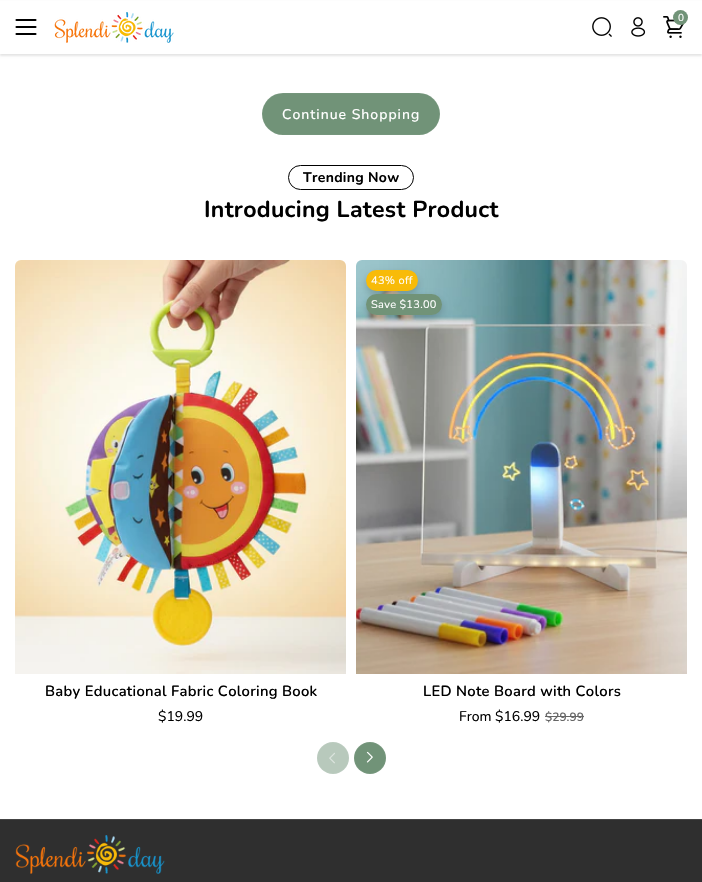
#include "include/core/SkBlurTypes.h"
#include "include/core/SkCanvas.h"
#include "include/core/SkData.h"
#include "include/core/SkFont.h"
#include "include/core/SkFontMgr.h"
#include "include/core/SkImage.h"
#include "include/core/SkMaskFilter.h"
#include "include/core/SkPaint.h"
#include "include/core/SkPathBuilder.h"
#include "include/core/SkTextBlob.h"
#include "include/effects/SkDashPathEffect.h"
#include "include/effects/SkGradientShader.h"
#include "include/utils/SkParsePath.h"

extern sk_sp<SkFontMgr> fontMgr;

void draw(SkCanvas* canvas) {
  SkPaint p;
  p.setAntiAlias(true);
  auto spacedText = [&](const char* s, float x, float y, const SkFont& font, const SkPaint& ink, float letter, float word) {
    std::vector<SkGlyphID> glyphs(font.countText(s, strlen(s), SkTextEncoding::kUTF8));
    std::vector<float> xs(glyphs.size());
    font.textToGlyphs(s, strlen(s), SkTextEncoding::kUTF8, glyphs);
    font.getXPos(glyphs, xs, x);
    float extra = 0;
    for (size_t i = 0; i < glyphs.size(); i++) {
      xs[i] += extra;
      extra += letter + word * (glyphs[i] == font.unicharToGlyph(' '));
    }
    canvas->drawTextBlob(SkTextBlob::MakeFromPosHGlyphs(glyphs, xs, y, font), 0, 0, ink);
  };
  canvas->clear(SK_ColorWHITE);
  p.setColor(SkColorSetARGB(26, 0, 0, 0));
  p.setMaskFilter(SkMaskFilter::MakeBlur(kNormal_SkBlurStyle, 1));
  canvas->drawRect(SkRect::MakeLTRB(0, 2, 702, 56), p);
  p.setMaskFilter(nullptr);
  p.setColor(SK_ColorWHITE);
  canvas->drawRect(SkRect::MakeLTRB(0, 1, 702, 54), p);
  p.setStyle(SkPaint::kStroke_Style);
  p.setStrokeWidth(2.1f);
  p.setStrokeCap(SkPaint::kRound_Cap);
  p.setStrokeJoin(SkPaint::kRound_Join);
  p.setColor(SK_ColorBLACK);
  canvas->drawPath(SkPathBuilder().moveTo(16.5f, 34).lineTo(35.5f, 34).moveTo(16.5f, 27).lineTo(35.5f, 27).moveTo(16.5f, 20).lineTo(35.5f, 20).detach(), p);
  canvas->drawImageRect(SkImages::DeferredFromEncodedData(SkData::MakeFromFileName("images/1.png")), SkRect::MakeLTRB(54, 12, 174, 43), SkSamplingOptions());
  canvas->drawImageRect(SkImages::DeferredFromEncodedData(SkData::MakeFromFileName("images/2.png")), SkRect::MakeLTRB(592, 17, 612, 37), SkSamplingOptions());
  canvas->drawImageRect(SkImages::DeferredFromEncodedData(SkData::MakeFromFileName("images/3.png")), SkRect::MakeLTRB(631, 17, 646, 37), SkSamplingOptions());
  canvas->drawImageRect(SkImages::DeferredFromEncodedData(SkData::MakeFromFileName("images/4.png")), SkRect::MakeLTRB(663, 16, 685, 38), SkSamplingOptions());
  p.setStyle(SkPaint::kFill_Style);
  p.setColor(SkColorSetRGB(113, 147, 120));
  canvas->drawCircle(680.5f, 17.5f, 7.5f, p);
  canvas->drawRoundRect(SkRect::MakeLTRB(262, 93, 440, 135), 21, 21, p);
  p.setStyle(SkPaint::kStroke_Style);
  p.setStrokeWidth(0.3f);
  p.setStrokeCap(SkPaint::kButt_Cap);
  p.setStrokeJoin(SkPaint::kMiter_Join);
  p.setColor(SkColorSetARGB(38, 255, 255, 255));
  canvas->drawRoundRect(SkRect::MakeLTRB(262.15f, 93.15f, 439.85f, 134.85f), 20.85f, 20.85f, p);
  p.setStrokeWidth(1);
  p.setColor(SK_ColorBLACK);
  canvas->drawRoundRect(SkRect::MakeLTRB(288.5f, 165.5f, 413.5f, 189.5f), 12, 12, p);
  canvas->drawImageRect(SkImages::DeferredFromEncodedData(SkData::MakeFromFileName("images/5.png")), SkRect::MakeLTRB(15, 260, 346, 674), SkSamplingOptions());
  canvas->drawImageRect(SkImages::DeferredFromEncodedData(SkData::MakeFromFileName("images/6.png")), SkRect::MakeLTRB(356, 260, 687, 674), SkSamplingOptions());
  p.setStyle(SkPaint::kFill_Style);
  p.setColor(SkColorSetARGB(51, 0, 0, 0));
  p.setMaskFilter(SkMaskFilter::MakeBlur(kNormal_SkBlurStyle, 4));
  canvas->drawRoundRect(SkRect::MakeLTRB(366, 274, 418, 295), 10.5f, 10.5f, p);
  p.setMaskFilter(nullptr);
  p.setColor(SkColorSetRGB(248, 187, 8));
  canvas->drawRoundRect(SkRect::MakeLTRB(366, 270, 418, 291), 10.5f, 10.5f, p);
  p.setColor(SkColorSetARGB(51, 0, 0, 0));
  p.setMaskFilter(SkMaskFilter::MakeBlur(kNormal_SkBlurStyle, 4));
  canvas->drawRoundRect(SkRect::MakeLTRB(366, 298, 442, 319), 10.5f, 10.5f, p);
  p.setMaskFilter(nullptr);
  p.setColor(SkColorSetRGB(113, 147, 120));
  canvas->drawRoundRect(SkRect::MakeLTRB(366, 294, 442, 315), 10.5f, 10.5f, p);
  p.setColor(SkColorSetRGB(102, 102, 102));
  canvas->drawRect(SkRect::MakeLTRB(545, 716, 584, 717), p);
  p.setColor(SkColorSetRGB(184, 201, 188));
  canvas->drawCircle(333, 758, 16, p);
  canvas->drawImageRect(SkImages::DeferredFromEncodedData(SkData::MakeFromFileName("images/7.png")), SkRect::MakeLTRB(329, 752, 335, 764), SkSamplingOptions());
  p.setStyle(SkPaint::kStroke_Style);
  p.setStrokeWidth(0.3f);
  p.setColor(SkColorSetARGB(38, 255, 255, 255));
  canvas->drawCircle(333, 758, 15.85f, p);
  p.setStyle(SkPaint::kFill_Style);
  p.setColor(SkColorSetRGB(113, 147, 120));
  canvas->drawCircle(370, 758, 16, p);
  canvas->drawImageRect(SkImages::DeferredFromEncodedData(SkData::MakeFromFileName("images/8.png")), SkRect::MakeLTRB(366, 751, 373, 763), SkSamplingOptions());
  p.setStyle(SkPaint::kStroke_Style);
  p.setColor(SkColorSetARGB(38, 255, 255, 255));
  canvas->drawCircle(370, 758, 15.85f, p);
  p.setStyle(SkPaint::kFill_Style);
  p.setColor(SkColorSetRGB(47, 47, 47));
  canvas->drawRect(SkRect::MakeLTRB(0, 820, 702, 882), p);
  p.setColor(SkColorSetRGB(68, 68, 68));
  canvas->drawRect(SkRect::MakeLTRB(0, 819, 702, 820), p);
  canvas->drawImageRect(SkImages::DeferredFromEncodedData(SkData::MakeFromFileName("images/9.png")), SkRect::MakeLTRB(15, 835, 165, 874), SkSamplingOptions());
  SkFont font1(fontMgr->matchFamilyStyle("Nunito", SkFontStyle::Normal()), 10);
  font1.setSubpixel(true);
  p.setColor(SK_ColorWHITE);
  canvas->drawString("0", 678, 21, font1, p);
  SkFont font2(fontMgr->matchFamilyStyle("Nunito", SkFontStyle(500, SkFontStyle::kNormal_Width, SkFontStyle::kUpright_Slant)), 14);
  font2.setSubpixel(true);
  spacedText("Continue Shopping", 282, 119, font2, p, 1, 0);
  SkFont font3(fontMgr->matchFamilyStyle("Nunito", SkFontStyle::Bold()), 14);
  font3.setSubpixel(true);
  p.setColor(SK_ColorBLACK);
  spacedText("Trending Now", 303, 182, font3, p, 0.3f, 0);
  SkFont font4(fontMgr->matchFamilyStyle("Nunito", SkFontStyle::Bold()), 23.1f);
  font4.setSubpixel(true);
  spacedText("Introducing Latest Product", 204, 217, font4, p, 0.3f, 0);
  SkFont font5(fontMgr->matchFamilyStyle("Nunito", SkFontStyle(600, SkFontStyle::kNormal_Width, SkFontStyle::kUpright_Slant)), 14.75f);
  font5.setSubpixel(true);
  spacedText("Baby Educational Fabric Coloring Book", 45, 696, font5, p, 0.3f, 0);
  SkFont font6(fontMgr->matchFamilyStyle("Nunito", SkFontStyle::Normal()), 14);
  font6.setSubpixel(true);
  canvas->drawString("$19.99", 158, 721, font6, p);
  SkFont font7(fontMgr->matchFamilyStyle("Nunito", SkFontStyle::Normal()), 11);
  font7.setSubpixel(true);
  p.setColor(SK_ColorWHITE);
  spacedText("43% off", 371, 284, font7, p, 0.3f, 0);
  spacedText("Save $13.00", 371, 308, font7, p, 0.3f, 0);
  p.setColor(SK_ColorBLACK);
  spacedText("LED Note Board with Colors", 423, 696, font5, p, 0.3f, 0);
  canvas->drawString("From $16.99", 459, 721, font6, p);
  SkFont font8(fontMgr->matchFamilyStyle("Nunito", SkFontStyle(600, SkFontStyle::kNormal_Width, SkFontStyle::kUpright_Slant)), 12);
  font8.setSubpixel(true);
  p.setColor(SkColorSetRGB(102, 102, 102));
  canvas->drawString("$29.99", 545, 721, font8, p);
}
